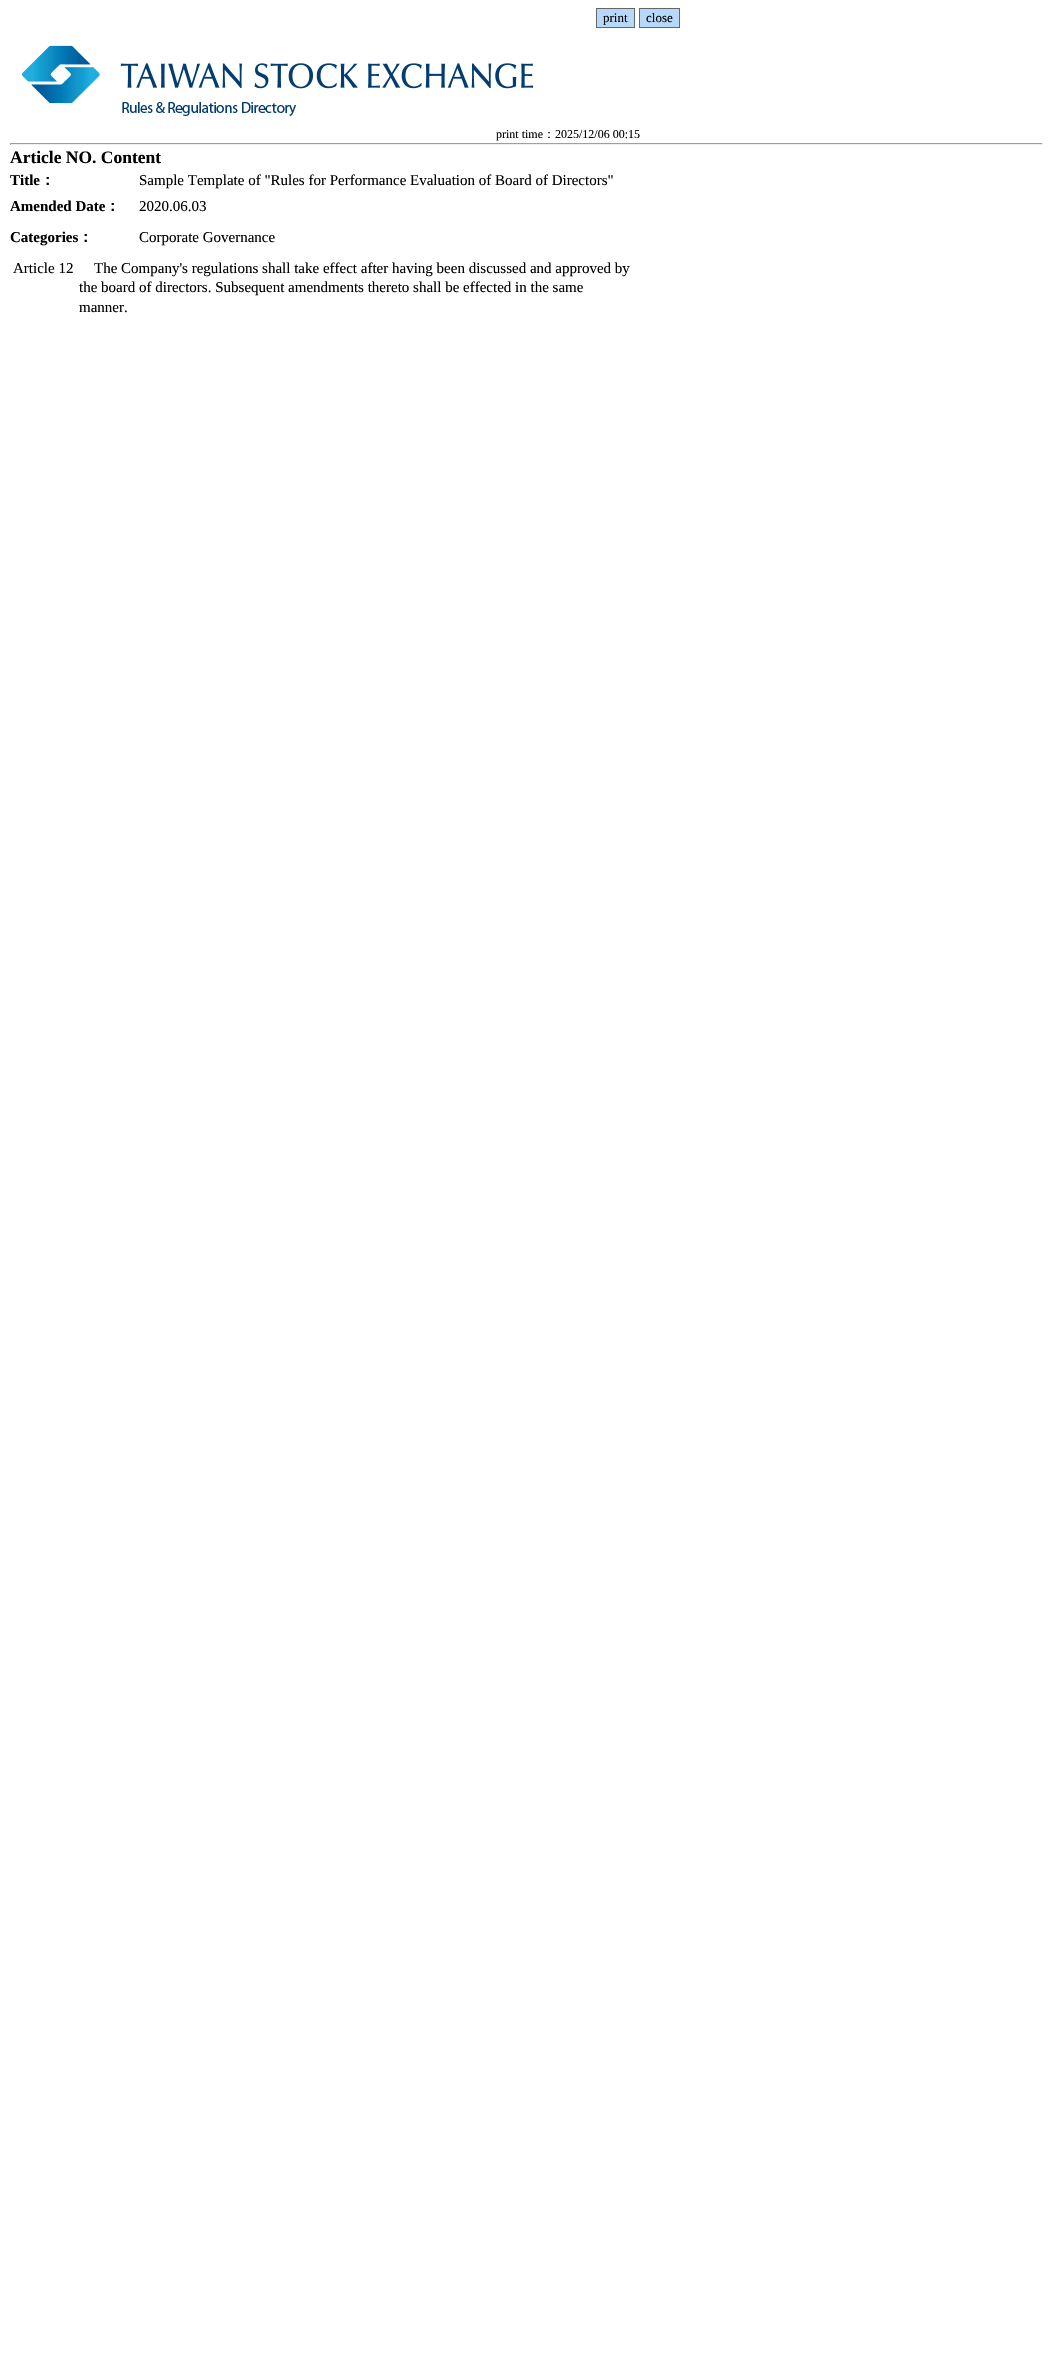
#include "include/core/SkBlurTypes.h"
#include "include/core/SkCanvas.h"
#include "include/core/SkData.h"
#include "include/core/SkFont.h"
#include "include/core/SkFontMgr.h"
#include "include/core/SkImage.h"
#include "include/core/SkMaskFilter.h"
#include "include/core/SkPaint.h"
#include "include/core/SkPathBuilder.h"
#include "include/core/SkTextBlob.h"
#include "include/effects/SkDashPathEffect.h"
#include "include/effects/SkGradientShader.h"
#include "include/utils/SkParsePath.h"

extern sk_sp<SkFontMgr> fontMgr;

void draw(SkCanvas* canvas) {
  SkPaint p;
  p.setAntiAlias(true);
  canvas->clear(SK_ColorWHITE);
  p.setColor(SkColorSetRGB(181, 216, 251));
  canvas->drawRect(SkRect::MakeLTRB(596.5f, 8.5f, 634.5f, 27.5f), p);
  p.setStyle(SkPaint::kStroke_Style);
  p.setStrokeWidth(1);
  p.setColor(SkColorSetRGB(102, 102, 102));
  canvas->drawRect(SkRect::MakeLTRB(596.5f, 8.5f, 634.5f, 27.5f), p);
  p.setStyle(SkPaint::kFill_Style);
  p.setColor(SkColorSetRGB(181, 216, 251));
  canvas->drawRect(SkRect::MakeLTRB(639.5f, 8.5f, 679.5f, 27.5f), p);
  p.setStyle(SkPaint::kStroke_Style);
  p.setColor(SkColorSetRGB(102, 102, 102));
  canvas->drawRect(SkRect::MakeLTRB(639.5f, 8.5f, 679.5f, 27.5f), p);
  canvas->drawImageRect(SkImages::DeferredFromEncodedData(SkData::MakeFromFileName("images/1.png")), SkRect::MakeLTRB(22, 45, 534, 116), SkSamplingOptions());
  p.setStyle(SkPaint::kFill_Style);
  p.setColor(SkColorSetRGB(159, 159, 159));
  canvas->drawRect(SkRect::MakeLTRB(10, 143, 1043, 144), p);
  p.setColor(SkColorSetRGB(238, 238, 238));
  canvas->drawRect(SkRect::MakeLTRB(1042, 143, 1043, 145), p);
  canvas->drawRect(SkRect::MakeLTRB(10, 144, 1043, 145), p);
  p.setColor(SkColorSetRGB(159, 159, 159));
  canvas->drawRect(SkRect::MakeLTRB(10, 143, 11, 145), p);
  SkFont font1(fontMgr->matchFamilyStyle("Liberation Serif", SkFontStyle::Normal()), 13);
  font1.setSubpixel(true);
  p.setColor(SK_ColorBLACK);
  canvas->drawString("print", 603, 22, font1, p);
  canvas->drawString("close", 646, 22, font1, p);
  SkFont font2(fontMgr->matchFamilyStyle("Liberation Serif", SkFontStyle::Normal()), 12);
  font2.setSubpixel(true);
  canvas->drawString("print time", 496, 138, font2, p);
  SkFont font3(fontMgr->matchFamilyStyle("WenQuanYi Zen Hei", SkFontStyle(500, SkFontStyle::kNormal_Width, SkFontStyle::kUpright_Slant)), 12);
  font3.setSubpixel(true);
  canvas->drawString("：", 543, 138, font3, p);
  canvas->drawString("2025/12/06 00:15", 555, 138, font2, p);
  SkFont font4(fontMgr->matchFamilyStyle("Liberation Serif", SkFontStyle::Bold()), 17.5f);
  font4.setSubpixel(true);
  canvas->drawString("Article NO. Content", 10, 163, font4, p);
  SkFont font5(fontMgr->matchFamilyStyle("Liberation Serif", SkFontStyle::Bold()), 15);
  font5.setSubpixel(true);
  canvas->drawString("Title", 10, 185, font5, p);
  SkFont font6(fontMgr->matchFamilyStyle("WenQuanYi Zen Hei", SkFontStyle::Bold()), 15);
  font6.setSubpixel(true);
  canvas->drawString("：", 40, 185, font6, p);
  SkFont font7(fontMgr->matchFamilyStyle("Liberation Serif", SkFontStyle::Normal()), 15);
  font7.setSubpixel(true);
  canvas->drawString("Sample Template of \"Rules for Performance Evaluation of Board of Directors\"", 139, 185, font7, p);
  canvas->drawString("Amended Date", 10, 211, font5, p);
  canvas->drawString("：", 105, 211, font6, p);
  canvas->drawString("2020.06.03", 139, 211, font7, p);
  canvas->drawString("Categories", 10, 242, font5, p);
  canvas->drawString("：", 78, 242, font6, p);
  canvas->drawString("Corporate Governance", 139, 242, font7, p);
  canvas->drawString("Article 12", 13, 273, font7, p);
  canvas->drawString("The Company's regulations shall take effect after having been discussed and approved by", 94, 273, font7, p);
  canvas->drawString("the board of directors. Subsequent amendments thereto shall be effected in the same", 79, 292, font7, p);
  canvas->drawString("manner.", 79, 312, font7, p);
}
